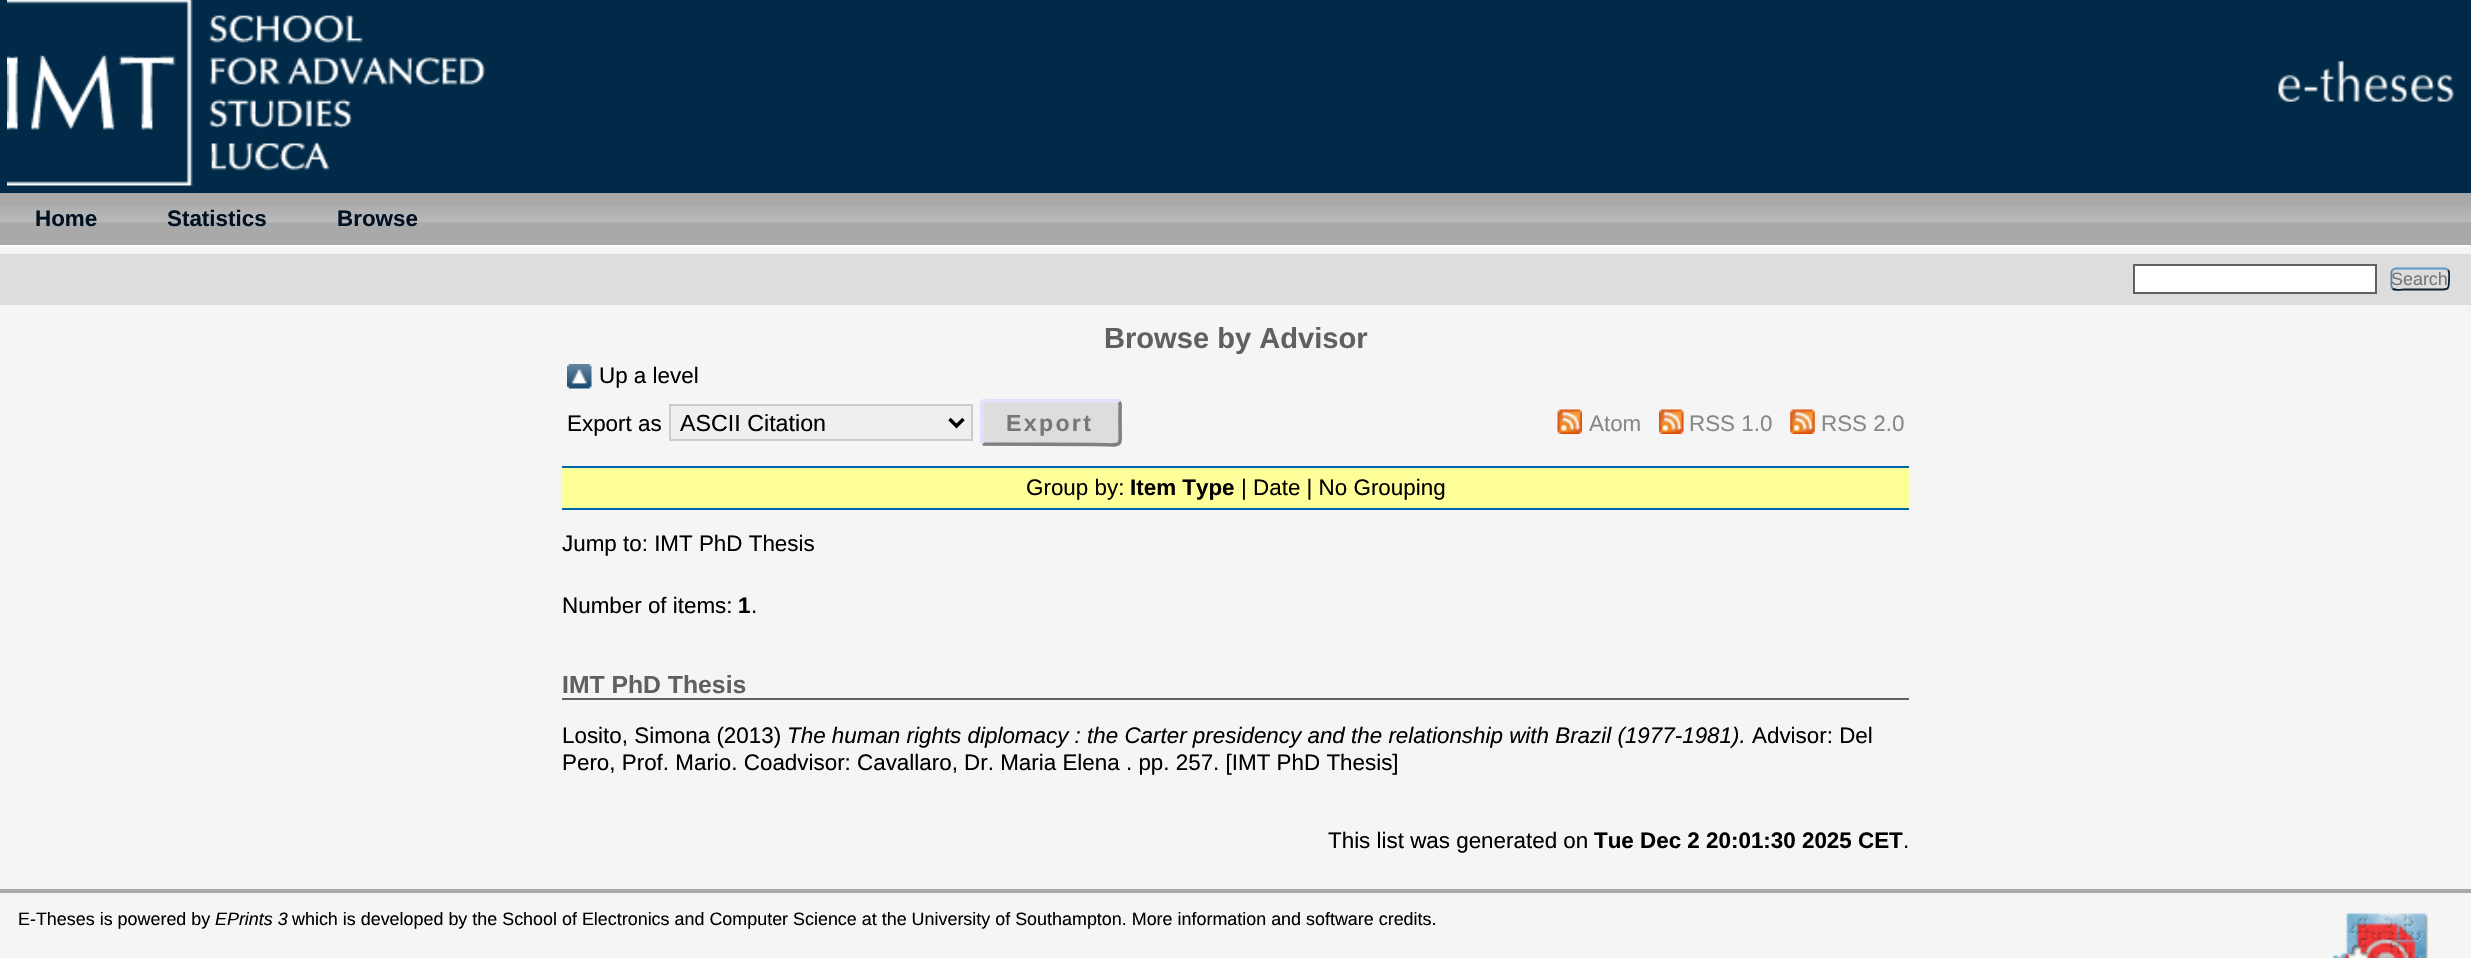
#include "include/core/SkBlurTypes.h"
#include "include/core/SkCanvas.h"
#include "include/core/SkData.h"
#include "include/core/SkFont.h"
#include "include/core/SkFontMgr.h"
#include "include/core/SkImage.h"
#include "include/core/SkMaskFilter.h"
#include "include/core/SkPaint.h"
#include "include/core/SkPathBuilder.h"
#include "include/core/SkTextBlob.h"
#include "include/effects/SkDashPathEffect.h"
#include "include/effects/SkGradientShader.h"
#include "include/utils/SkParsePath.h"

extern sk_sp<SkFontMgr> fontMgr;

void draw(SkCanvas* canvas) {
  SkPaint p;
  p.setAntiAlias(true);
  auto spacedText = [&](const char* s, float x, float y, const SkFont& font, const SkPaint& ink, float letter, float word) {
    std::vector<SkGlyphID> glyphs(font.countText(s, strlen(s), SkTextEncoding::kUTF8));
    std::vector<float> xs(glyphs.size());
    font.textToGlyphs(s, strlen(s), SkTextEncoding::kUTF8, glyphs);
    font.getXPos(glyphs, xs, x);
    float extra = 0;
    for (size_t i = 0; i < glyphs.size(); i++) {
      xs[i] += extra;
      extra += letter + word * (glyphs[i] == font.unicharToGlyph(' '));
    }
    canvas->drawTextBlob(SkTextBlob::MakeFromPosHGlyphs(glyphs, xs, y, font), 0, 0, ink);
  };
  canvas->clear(SkColorSetRGB(245, 245, 245));
  p.setColor(SkColorSetRGB(0, 42, 72));
  canvas->drawRect(SkRect::MakeLTRB(0, 0, 2471, 193), p);
  canvas->drawImageRect(SkImages::DeferredFromEncodedData(SkData::MakeFromFileName("images/1.png")), SkRect::MakeLTRB(7, 0, 485, 186), SkSamplingOptions());
  canvas->drawImageRect(SkImages::DeferredFromEncodedData(SkData::MakeFromFileName("images/2.png")), SkRect::MakeLTRB(2278, 61, 2454, 102), SkSamplingOptions());
  p.setColor(SkColorSetRGB(169, 169, 169));
  canvas->drawRect(SkRect::MakeLTRB(0, 193, 2471, 245), p);
  canvas->drawImageRect(SkImages::DeferredFromEncodedData(SkData::MakeFromFileName("images/3.png")), SkRect::MakeLTRB(0, 205, 2471, 223), SkSamplingOptions());
  p.setColor(SK_ColorWHITE);
  canvas->drawRect(SkRect::MakeLTRB(0, 245, 2471, 247), p);
  p.setColor(SkColorSetRGB(221, 221, 221));
  canvas->drawRect(SkRect::MakeLTRB(0, 254, 2471, 305), p);
  p.setColor(SK_ColorWHITE);
  canvas->drawRect(SkRect::MakeLTRB(2134, 265, 2376, 293), p);
  p.setStyle(SkPaint::kStroke_Style);
  p.setStrokeWidth(2);
  p.setColor(SkColorSetRGB(96, 96, 96));
  canvas->drawRect(SkRect::MakeLTRB(2134, 265, 2376, 293), p);
  p.setStrokeWidth(1.8f);
  p.setColor(SkColorSetRGB(91, 151, 199));
  canvas->drawPath(SkPathBuilder().moveTo(2392.5f, 270).cubicTo(2393.5f, 269, 2394.5f, 268.5f, 2396, 268.5f).lineTo(2445, 268.5f).cubicTo(2446, 268.5f, 2447, 269, 2448, 270).detach(), p);
  p.setColor(SkColorSetRGB(13, 33, 49));
  canvas->drawPath(SkPathBuilder().moveTo(2448, 270).cubicTo(2450, 272, 2449, 276.5f, 2449, 279).cubicTo(2449, 290.5f, 2448.5f, 289.5f, 2436.5f, 289.5f).lineTo(2404, 289.5f).cubicTo(2402, 289.5f, 2395, 291, 2392.5f, 288.5f).detach(), p);
  p.setColor(SkColorSetRGB(82, 135, 179));
  canvas->drawPath(SkPathBuilder().moveTo(2392.5f, 288.5f).cubicTo(2390.5f, 286, 2391.5f, 282, 2391.5f, 279).cubicTo(2391.5f, 276.5f, 2390.5f, 272, 2392.5f, 270).detach(), p);
  canvas->drawImageRect(SkImages::DeferredFromEncodedData(SkData::MakeFromFileName("images/4.png")), SkRect::MakeLTRB(567, 364, 592, 389), SkSamplingOptions());
  p.setStyle(SkPaint::kFill_Style);
  p.setColor(SkColorSetRGB(239, 239, 239));
  canvas->drawRect(SkRect::MakeLTRB(670, 405, 972, 440), p);
  p.setStyle(SkPaint::kStroke_Style);
  p.setStrokeWidth(2);
  p.setColor(SkColorSetRGB(204, 204, 204));
  canvas->drawRect(SkRect::MakeLTRB(670, 405, 972, 440), p);
  p.setStrokeWidth(3.5f);
  p.setColor(SK_ColorBLACK);
  canvas->drawPath(SkPathBuilder().moveTo(949.5f, 419).lineTo(956.5f, 426).lineTo(963.5f, 419).detach(), p);
  p.setStyle(SkPaint::kFill_Style);
  p.setColor(SkColorSetRGB(221, 221, 221));
  canvas->drawRoundRect(SkRect::MakeLTRB(980, 399, 1122, 446), 5, 5, p);
  p.setStyle(SkPaint::kStroke_Style);
  p.setColor(SkColorSetRGB(128, 128, 128));
  canvas->drawPath(SkPathBuilder().moveTo(1119, 402).cubicTo(1121, 404, 1120, 408.5f, 1120, 410.5f).lineTo(1120, 422.5f).cubicTo(1120, 450, 1124.5f, 444.5f, 1094.5f, 444.5f).lineTo(984, 444).lineTo(983, 443.5f).detach(), p);
  p.setColor(SkColorSetRGB(224, 224, 255));
  canvas->drawPath(SkPathBuilder().moveTo(983, 443.5f).cubicTo(981, 441.5f, 982, 436.5f, 982, 435).lineTo(982, 422.5f).cubicTo(982, 395, 977, 401, 1007, 401).lineTo(1118, 401).lineTo(1119, 402).detach(), p);
  canvas->drawImageRect(SkImages::DeferredFromEncodedData(SkData::MakeFromFileName("images/5.png")), SkRect::MakeLTRB(1557, 409, 1582, 434), SkSamplingOptions());
  canvas->drawImageRect(SkImages::DeferredFromEncodedData(SkData::MakeFromFileName("images/6.png")), SkRect::MakeLTRB(1659, 409, 1684, 434), SkSamplingOptions());
  canvas->drawImageRect(SkImages::DeferredFromEncodedData(SkData::MakeFromFileName("images/7.png")), SkRect::MakeLTRB(1790, 409, 1815, 434), SkSamplingOptions());
  p.setStyle(SkPaint::kFill_Style);
  p.setColor(SkColorSetRGB(255, 255, 153));
  canvas->drawRect(SkRect::MakeLTRB(562, 468, 1909, 508), p);
  p.setColor(SkColorSetRGB(0, 100, 172));
  canvas->drawRect(SkRect::MakeLTRB(562, 466, 1909, 468), p);
  canvas->drawRect(SkRect::MakeLTRB(562, 508, 1909, 510), p);
  p.setColor(SkColorSetRGB(96, 96, 96));
  canvas->drawRect(SkRect::MakeLTRB(562, 698, 1909, 700), p);
  p.setColor(SkColorSetRGB(169, 169, 169));
  canvas->drawRect(SkRect::MakeLTRB(0, 889, 2471, 893), p);
  canvas->drawImageRect(SkImages::DeferredFromEncodedData(SkData::MakeFromFileName("images/8.png")), SkRect::MakeLTRB(2332, 913, 2429, 958), SkSamplingOptions());
  SkFont font1(fontMgr->matchFamilyStyle("Liberation Sans", SkFontStyle::Bold()), 22.4f);
  font1.setSubpixel(true);
  p.setColor(SkColorSetRGB(0, 17, 34));
  canvas->drawString("Home", 35, 226, font1, p);
  canvas->drawString("Statistics", 167, 226, font1, p);
  canvas->drawString("Browse", 337, 226, font1, p);
  SkFont font2(fontMgr->matchFamilyStyle("Liberation Sans", SkFontStyle::Normal()), 17.92f);
  font2.setSubpixel(true);
  p.setColor(SkColorSetRGB(119, 119, 119));
  canvas->drawString("Search", 2391, 285, font2, p);
  SkFont font3(fontMgr->matchFamilyStyle("Liberation Sans", SkFontStyle::Bold()), 29.1f);
  font3.setSubpixel(true);
  p.setColor(SkColorSetRGB(96, 96, 96));
  canvas->drawString("Browse by Advisor", 1104, 348, font3, p);
  SkFont font4(fontMgr->matchFamilyStyle("Liberation Sans", SkFontStyle::Normal()), 22.4f);
  font4.setSubpixel(true);
  p.setColor(SK_ColorBLACK);
  canvas->drawString("Up a level", 599, 383, font4, p);
  canvas->drawString("Export as", 567, 431, font4, p);
  SkFont font5(fontMgr->matchFamilyStyle("Liberation Sans", SkFontStyle::Normal()), 23.25f);
  font5.setSubpixel(true);
  canvas->drawString("ASCII Citation", 680, 431, font5, p);
  SkFont font6(fontMgr->matchFamilyStyle("Liberation Sans", SkFontStyle::Bold()), 23.25f);
  font6.setSubpixel(true);
  p.setColor(SkColorSetRGB(119, 119, 119));
  spacedText("Export", 1006, 431, font6, p, 2.25f, 0);
  p.setColor(SkColorSetRGB(136, 136, 136));
  canvas->drawString("Atom", 1589, 431, font4, p);
  canvas->drawString("RSS 1.0", 1689, 431, font4, p);
  canvas->drawString("RSS 2.0", 1821, 431, font4, p);
  p.setColor(SK_ColorBLACK);
  canvas->drawString("Group by:", 1026, 495, font4, p);
  canvas->drawString("Item Type", 1130, 495, font1, p);
  canvas->drawString("| Date | No Grouping", 1241, 495, font4, p);
  canvas->drawString("Jump to: IMT PhD Thesis", 562, 551, font4, p);
  canvas->drawString("Number of items:", 562, 613, font4, p);
  canvas->drawString("1", 738, 613, font1, p);
  canvas->drawString(".", 751, 613, font4, p);
  SkFont font7(fontMgr->matchFamilyStyle("Liberation Sans", SkFontStyle::Bold()), 24.75f);
  font7.setSubpixel(true);
  p.setColor(SkColorSetRGB(96, 96, 96));
  canvas->drawString("IMT PhD Thesis", 562, 693, font7, p);
  p.setColor(SK_ColorBLACK);
  canvas->drawString("Losito, Simona (2013)", 562, 743, font4, p);
  SkFont font8(fontMgr->matchFamilyStyle("Liberation Sans", SkFontStyle::Italic()), 22.4f);
  font8.setSubpixel(true);
  canvas->drawString("The human rights diplomacy : the Carter presidency and the relationship with Brazil (1977-1981).", 787, 743, font8, p);
  canvas->drawString("Advisor: Del", 1752, 743, font4, p);
  canvas->drawString("Pero, Prof. Mario. Coadvisor: Cavallaro, Dr. Maria Elena . pp. 257. [IMT PhD Thesis]", 562, 770, font4, p);
  canvas->drawString("This list was generated on", 1328, 848, font4, p);
  canvas->drawString("Tue Dec 2 20:01:30 2025 CET", 1594, 848, font1, p);
  canvas->drawString(".", 1903, 848, font4, p);
  canvas->drawString("E-Theses is powered by", 18, 925, font2, p);
  SkFont font9(fontMgr->matchFamilyStyle("Liberation Sans", SkFontStyle::Italic()), 17.92f);
  font9.setSubpixel(true);
  canvas->drawString("EPrints 3", 215, 925, font9, p);
  canvas->drawString("which is developed by the School of Electronics and Computer Science at the University of Southampton. More information and software credits.", 292, 925, font2, p);
}
